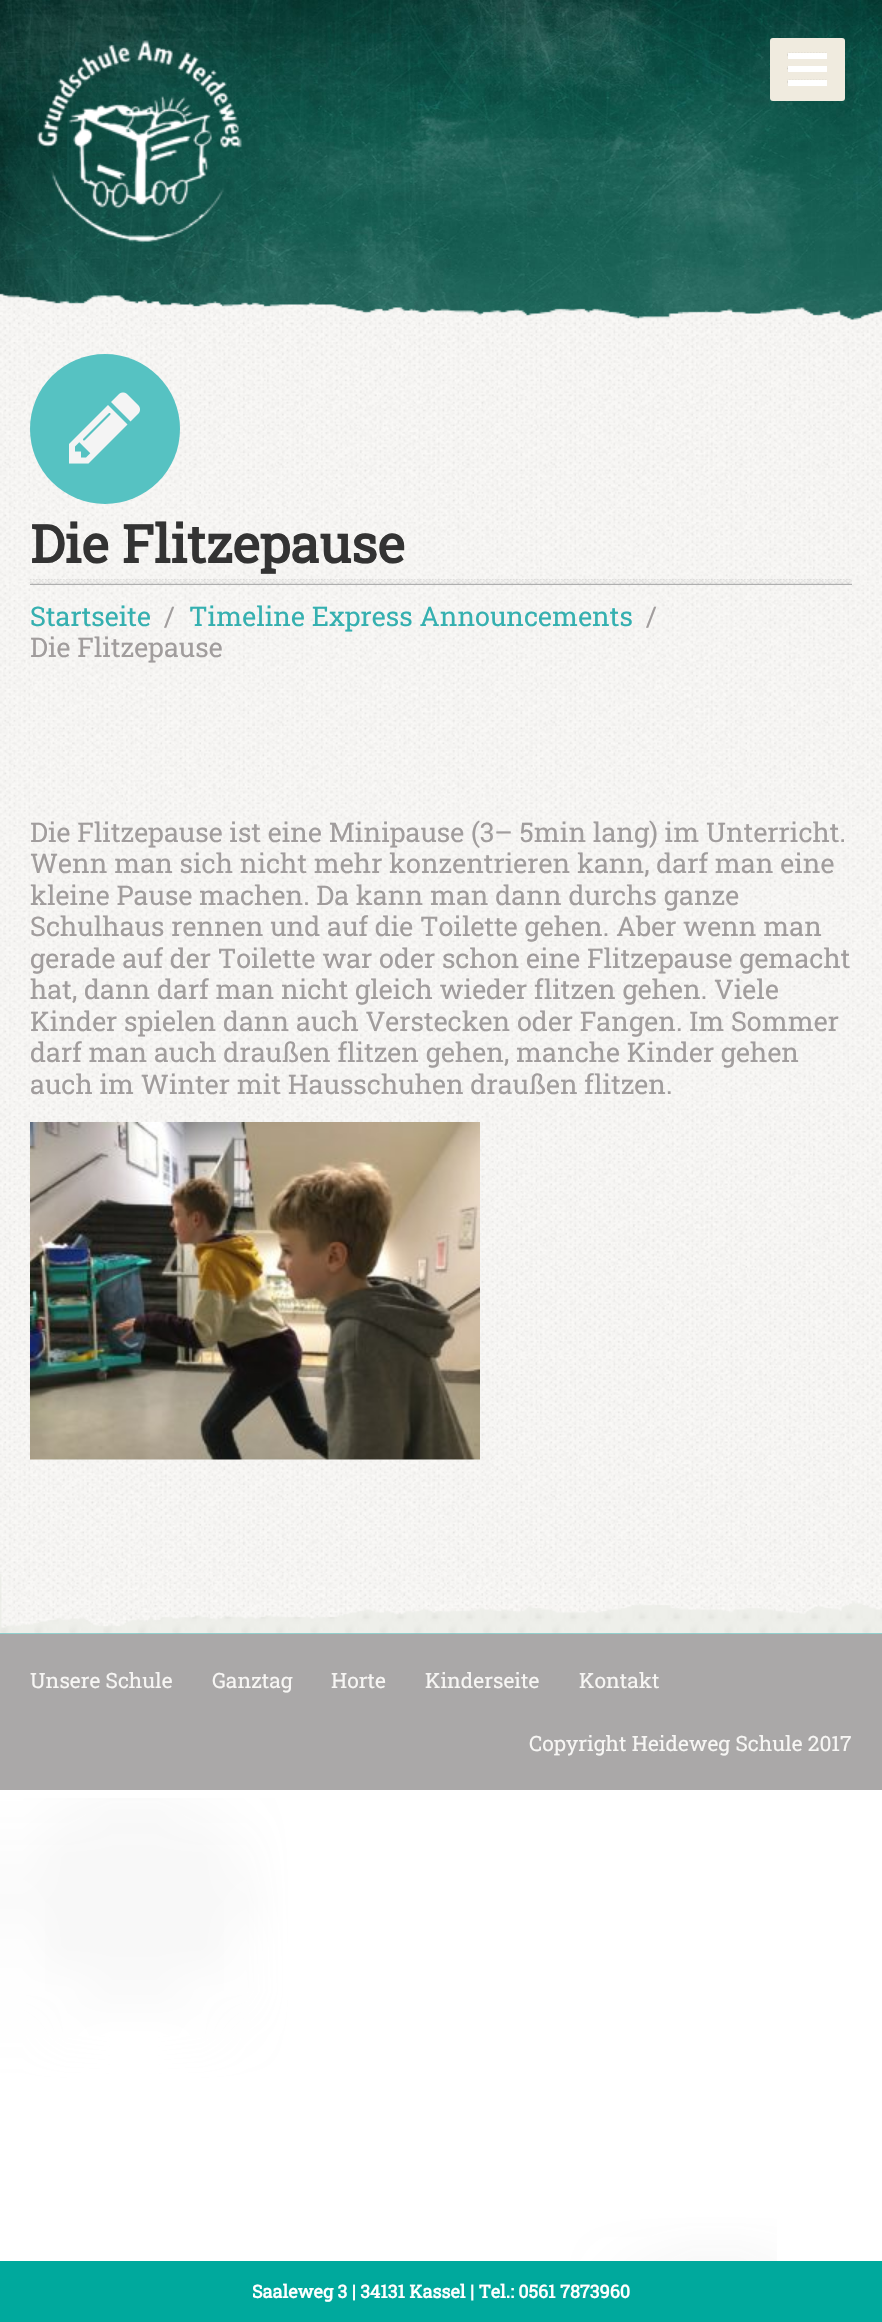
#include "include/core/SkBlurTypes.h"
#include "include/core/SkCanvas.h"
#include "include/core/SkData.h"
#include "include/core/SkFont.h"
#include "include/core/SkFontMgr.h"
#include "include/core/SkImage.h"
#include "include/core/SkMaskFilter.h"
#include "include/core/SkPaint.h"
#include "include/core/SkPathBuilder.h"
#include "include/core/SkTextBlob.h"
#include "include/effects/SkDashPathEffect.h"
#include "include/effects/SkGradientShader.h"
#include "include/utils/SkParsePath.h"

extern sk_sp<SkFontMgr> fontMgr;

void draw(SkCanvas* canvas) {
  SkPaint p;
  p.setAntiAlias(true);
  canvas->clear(SK_ColorWHITE);
  canvas->drawImageRect(SkImages::DeferredFromEncodedData(SkData::MakeFromFileName("images/1.png")), SkRect::MakeLTRB(0, 1798, 777, 2261), SkSamplingOptions());
  canvas->drawImageRect(SkImages::DeferredFromEncodedData(SkData::MakeFromFileName("images/2.png")), SkRect::MakeLTRB(0, 0, 882, 320), SkSamplingOptions());
  canvas->drawImageRect(SkImages::DeferredFromEncodedData(SkData::MakeFromFileName("images/3.png")), SkRect::MakeLTRB(37, 40, 242, 242), SkSamplingOptions());
  p.setColor(SkColorSetRGB(240, 235, 223));
  canvas->drawRoundRect(SkRect::MakeLTRB(770, 38, 845, 101), 3, 3, p);
  canvas->drawImageRect(SkImages::DeferredFromEncodedData(SkData::MakeFromFileName("images/4.png")), SkRect::MakeLTRB(787, 52, 827, 59), SkSamplingOptions());
  p.setColor(SK_ColorWHITE);
  canvas->drawRect(SkRect::MakeLTRB(788, 53, 827, 59), p);
  canvas->drawImageRect(SkImages::DeferredFromEncodedData(SkData::MakeFromFileName("images/5.png")), SkRect::MakeLTRB(787, 66, 788, 72), SkSamplingOptions());
  canvas->drawRect(SkRect::MakeLTRB(788, 66, 827, 72), p);
  canvas->drawImageRect(SkImages::DeferredFromEncodedData(SkData::MakeFromFileName("images/4.png")), SkRect::MakeLTRB(787, 79, 827, 86), SkSamplingOptions());
  canvas->drawRect(SkRect::MakeLTRB(788, 80, 827, 86), p);
  p.setColor(SkColorSetRGB(53, 178, 178));
  canvas->drawRect(SkRect::MakeLTRB(0, 1633, 882, 1634), p);
  canvas->drawImageRect(SkImages::DeferredFromEncodedData(SkData::MakeFromFileName("images/6.png")), SkRect::MakeLTRB(20, 1633, 882, 1634), SkSamplingOptions());
  p.setColor(SkColorSetRGB(247, 246, 244));
  canvas->drawRect(SkRect::MakeLTRB(0, 1573, 882, 1574), p);
  canvas->drawImageRect(SkImages::DeferredFromEncodedData(SkData::MakeFromFileName("images/7.png")), SkRect::MakeLTRB(0, 324, 882, 1574), SkSamplingOptions());
  canvas->drawImageRect(SkImages::DeferredFromEncodedData(SkData::MakeFromFileName("images/8.png")), SkRect::MakeLTRB(0, 293, 882, 324), SkSamplingOptions());
  p.setColor(SkColorSetRGB(86, 194, 194));
  canvas->drawCircle(105, 429, 75, p);
  canvas->drawImageRect(SkImages::DeferredFromEncodedData(SkData::MakeFromFileName("images/9.png")), SkRect::MakeLTRB(69, 392, 140, 464), SkSamplingOptions());
  canvas->drawImageRect(SkImages::DeferredFromEncodedData(SkData::MakeFromFileName("images/10.png")), SkRect::MakeLTRB(30, 579, 852, 585), SkSamplingOptions());
  canvas->drawImageRect(SkImages::DeferredFromEncodedData(SkData::MakeFromFileName("images/11.png")), SkRect::MakeLTRB(30, 1122, 480, 1460), SkSamplingOptions());
  canvas->drawImageRect(SkImages::DeferredFromEncodedData(SkData::MakeFromFileName("images/13.png")), SkRect::MakeLTRB(0, 1574, 882, 1634), SkSamplingOptions());
  canvas->drawImageRect(SkImages::DeferredFromEncodedData(SkData::MakeFromFileName("images/12.png")), SkRect::MakeLTRB(1, 1573, 882, 1628), SkSamplingOptions());
  p.setColor(SkColorSetRGB(170, 168, 168));
  canvas->drawRect(SkRect::MakeLTRB(0, 1634, 882, 1790), p);
  p.setColor(SkColorSetRGB(0, 169, 157));
  canvas->drawRect(SkRect::MakeLTRB(0, 2261, 882, 2322), p);
  SkFont font1(fontMgr->matchFamilyStyle("Roboto Slab", SkFontStyle::Bold()), 52.5f);
  font1.setSubpixel(true);
  p.setColor(SkColorSetRGB(51, 51, 51));
  canvas->drawString("Die Flitzepause", 30, 563, font1, p);
  SkFont font2(fontMgr->matchFamilyStyle("Roboto Slab", SkFontStyle::Normal()), 27);
  font2.setSubpixel(true);
  p.setColor(SkColorSetRGB(53, 176, 176));
  canvas->drawString("Startseite", 30, 626, font2, p);
  p.setColor(SkColorSetRGB(161, 157, 157));
  canvas->drawString("/", 164, 626, font2, p);
  p.setColor(SkColorSetRGB(53, 176, 176));
  canvas->drawString("Timeline Express Announcements", 189, 626, font2, p);
  p.setColor(SkColorSetRGB(161, 157, 157));
  canvas->drawString("/", 646, 626, font2, p);
  canvas->drawString("Die Flitzepause", 30, 657, font2, p);
  canvas->drawString("Die Flitzepause ist eine Minipause (3– 5min lang) im Unterricht.", 30, 842, font2, p);
  canvas->drawString("Wenn man sich nicht mehr konzentrieren kann, darf man eine", 30, 873, font2, p);
  canvas->drawString("kleine Pause machen. Da kann man dann durchs ganze", 30, 905, font2, p);
  canvas->drawString("Schulhaus rennen und auf die Toilette gehen. Aber wenn man", 30, 936, font2, p);
  canvas->drawString("gerade auf der Toilette war oder schon eine Flitzepause gemacht", 30, 968, font2, p);
  canvas->drawString("hat, dann darf man nicht gleich wieder flitzen gehen. Viele", 30, 999, font2, p);
  canvas->drawString("Kinder spielen dann auch Verstecken oder Fangen. Im Sommer", 30, 1031, font2, p);
  canvas->drawString("darf man auch draußen flitzen gehen, manche Kinder gehen", 30, 1062, font2, p);
  canvas->drawString("auch im Winter mit Hausschuhen draußen flitzen.", 30, 1094, font2, p);
  SkFont font3(fontMgr->matchFamilyStyle("Roboto Slab", SkFontStyle::Normal()), 21);
  font3.setSubpixel(true);
  p.setColor(SkColorSetRGB(247, 246, 244));
  canvas->drawString("Unsere Schule", 30, 1688, font3, p);
  canvas->drawString("Ganztag", 212, 1688, font3, p);
  canvas->drawString("Horte", 331, 1688, font3, p);
  canvas->drawString("Kinderseite", 425, 1688, font3, p);
  canvas->drawString("Kontakt", 579, 1688, font3, p);
  canvas->drawString("Copyright Heideweg Schule 2017", 529, 1751, font3, p);
  SkFont font4(fontMgr->matchFamilyStyle("Roboto Slab", SkFontStyle::Bold()), 18);
  font4.setSubpixel(true);
  p.setColor(SK_ColorWHITE);
  canvas->drawString("Saaleweg 3 | 34131 Kassel | Tel.: 0561 7873960", 252, 2298, font4, p);
}
